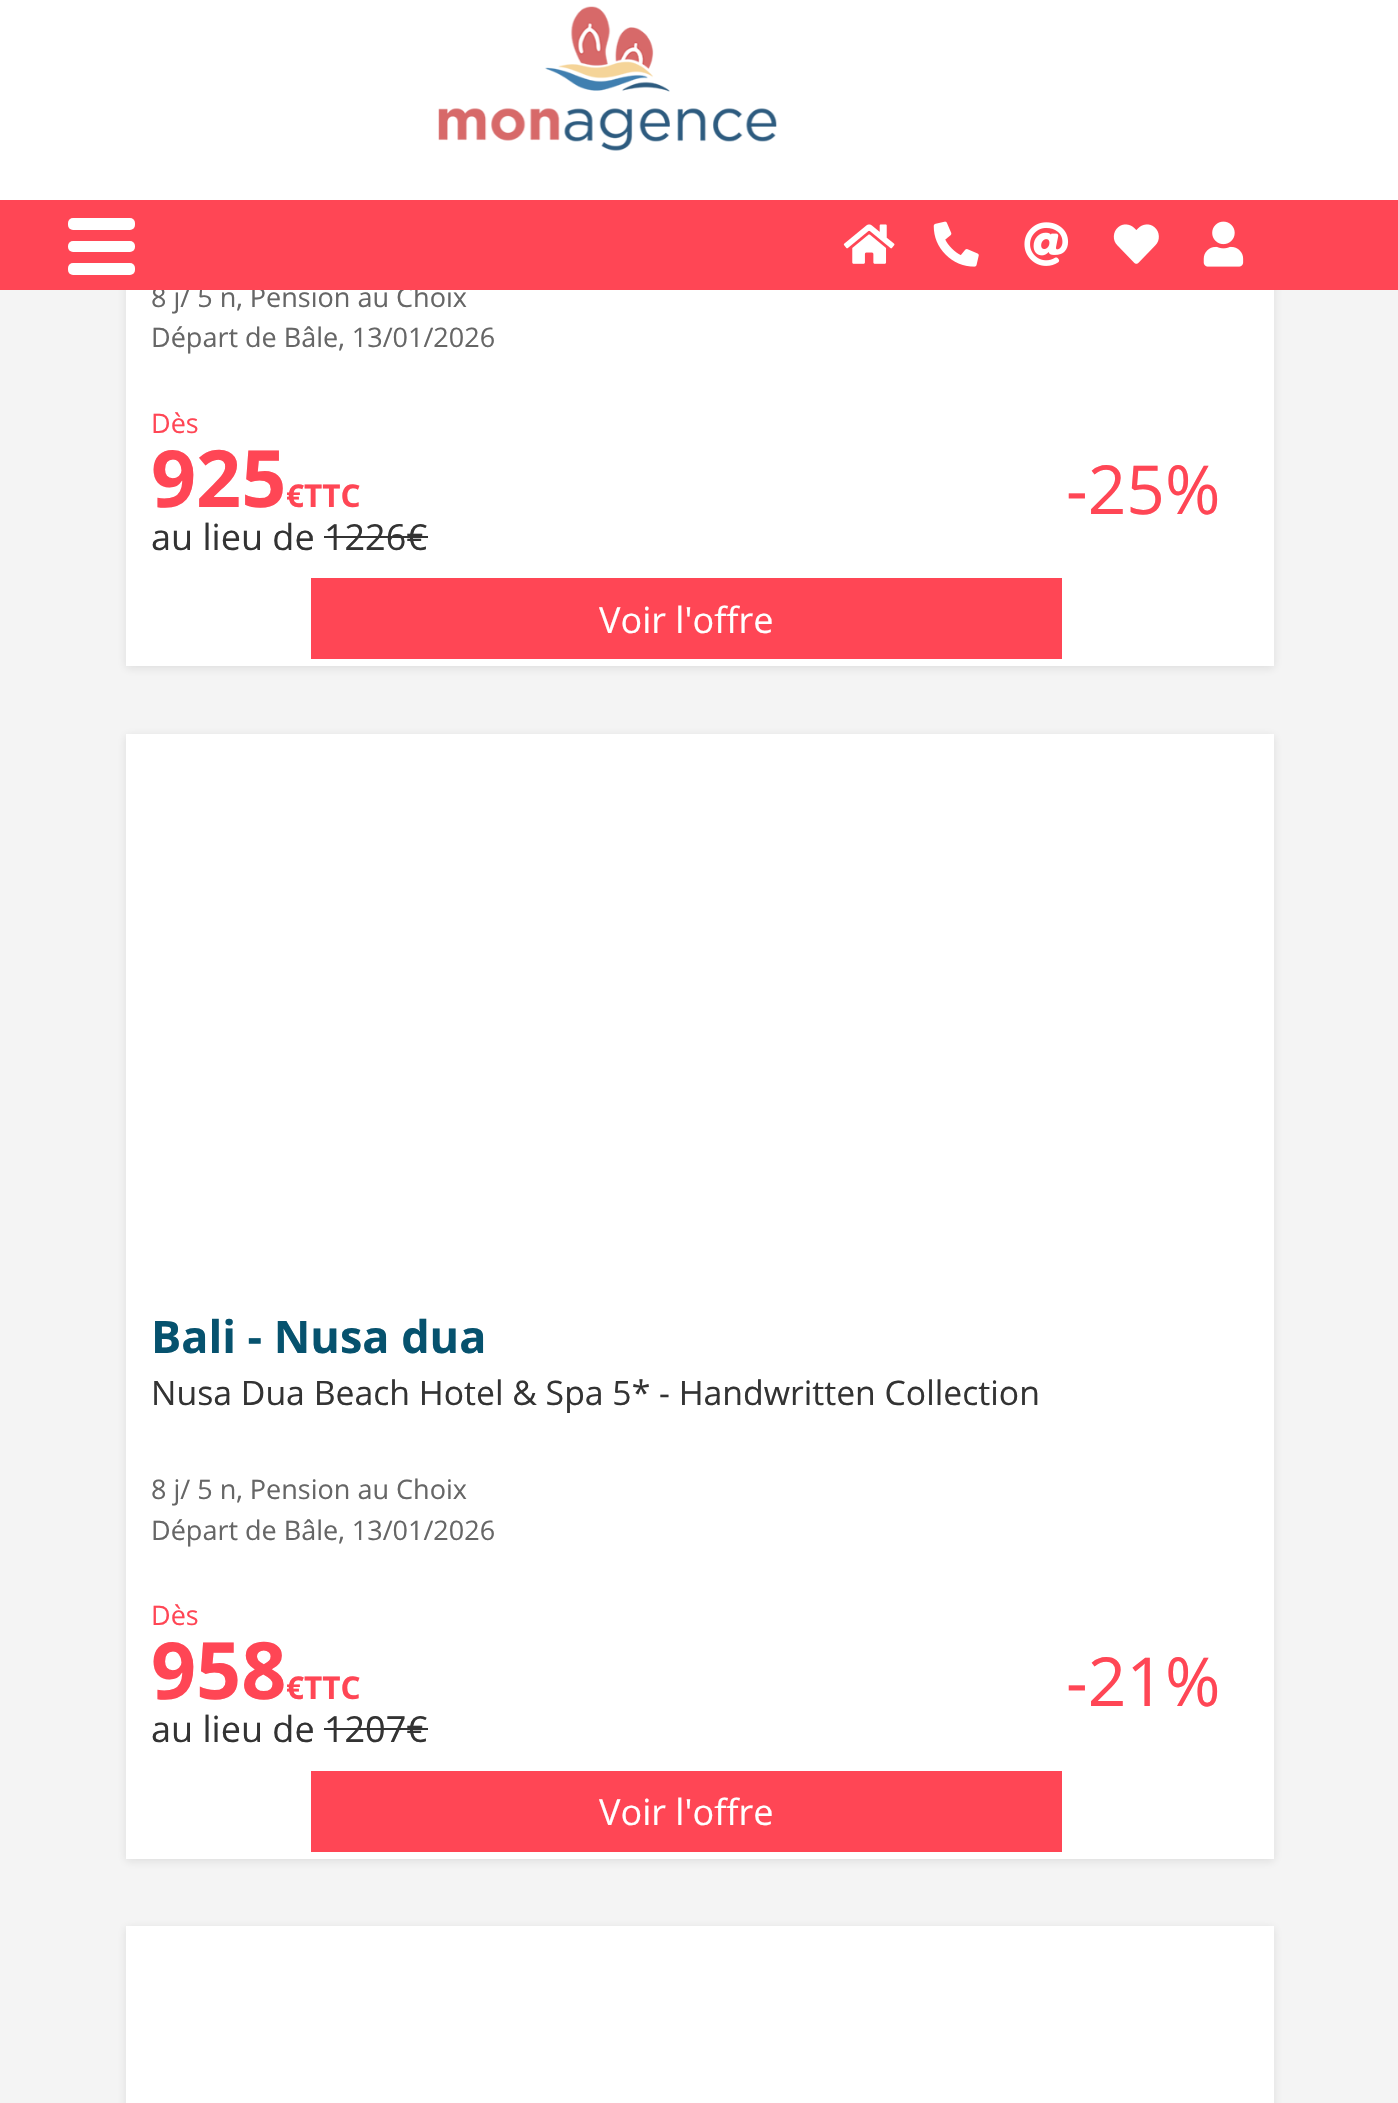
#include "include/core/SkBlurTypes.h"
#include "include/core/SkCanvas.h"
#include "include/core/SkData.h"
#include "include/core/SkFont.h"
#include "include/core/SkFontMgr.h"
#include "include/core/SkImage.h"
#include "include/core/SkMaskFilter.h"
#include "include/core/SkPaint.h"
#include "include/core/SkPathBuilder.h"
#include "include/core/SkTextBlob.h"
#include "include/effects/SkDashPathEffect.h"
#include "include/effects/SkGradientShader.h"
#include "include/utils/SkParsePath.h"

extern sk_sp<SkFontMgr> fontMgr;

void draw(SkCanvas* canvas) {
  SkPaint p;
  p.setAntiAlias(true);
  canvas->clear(SkColorSetRGB(244, 244, 244));
  p.setColor(SkColorSetARGB(26, 12, 12, 13));
  p.setMaskFilter(SkMaskFilter::MakeBlur(kNormal_SkBlurStyle, 4.5f));
  canvas->drawRect(SkRect::MakeLTRB(126, -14, 1274, 668), p);
  p.setMaskFilter(nullptr);
  p.setColor(SK_ColorWHITE);
  canvas->drawRect(SkRect::MakeLTRB(0, 0, 1398, 200), p);
  canvas->drawImageRect(SkImages::DeferredFromEncodedData(SkData::MakeFromFileName("images/1.png")), SkRect::MakeLTRB(438, 6, 777, 151), SkSamplingOptions());
  canvas->drawRect(SkRect::MakeLTRB(126, 290, 1274, 666), p);
  p.setColor(SkColorSetRGB(51, 51, 51));
  canvas->drawRect(SkRect::MakeLTRB(324, 536, 428, 538), p);
  p.setColor(SkColorSetRGB(255, 70, 85));
  canvas->drawRect(SkRect::MakeLTRB(311, 578, 1062, 659), p);
  p.setColor(SkColorSetARGB(26, 12, 12, 13));
  p.setMaskFilter(SkMaskFilter::MakeBlur(kNormal_SkBlurStyle, 4.5f));
  canvas->drawRect(SkRect::MakeLTRB(126, 736, 1274, 1861), p);
  p.setMaskFilter(nullptr);
  p.setColor(SK_ColorWHITE);
  canvas->drawRect(SkRect::MakeLTRB(126, 734, 1274, 1859), p);
  p.setColor(SkColorSetRGB(51, 51, 51));
  canvas->drawRect(SkRect::MakeLTRB(324, 1728, 428, 1730), p);
  p.setColor(SkColorSetRGB(255, 70, 85));
  canvas->drawRect(SkRect::MakeLTRB(311, 1771, 1062, 1852), p);
  p.setColor(SkColorSetARGB(26, 12, 12, 13));
  p.setMaskFilter(SkMaskFilter::MakeBlur(kNormal_SkBlurStyle, 4.5f));
  canvas->drawRect(SkRect::MakeLTRB(126, 1928, 1274, 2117), p);
  p.setMaskFilter(nullptr);
  p.setColor(SK_ColorWHITE);
  canvas->drawRect(SkRect::MakeLTRB(126, 1926, 1274, 2103), p);
  SkFont font1(fontMgr->matchFamilyStyle("Open Sans", SkFontStyle::Normal()), 27);
  font1.setSubpixel(true);
  p.setColor(SkColorSetRGB(102, 102, 102));
  canvas->drawString("8 j/ 5 n, Pension au Choix", 151, 307, font1, p);
  p.setColor(SkColorSetRGB(255, 70, 85));
  canvas->drawRect(SkRect::MakeLTRB(0, 200, 1398, 290), p);
  p.setColor(SK_ColorWHITE);
  canvas->drawRoundRect(SkRect::MakeLTRB(68, 263, 135, 275), 5, 5, p);
  canvas->drawRoundRect(SkRect::MakeLTRB(68, 241, 135, 252), 5, 5, p);
  canvas->drawRoundRect(SkRect::MakeLTRB(68, 218, 135, 230), 5, 5, p);
  canvas->drawImageRect(SkImages::DeferredFromEncodedData(SkData::MakeFromFileName("images/6.png")), SkRect::MakeLTRB(1203, 221, 1244, 267), SkSamplingOptions());
  canvas->drawImageRect(SkImages::DeferredFromEncodedData(SkData::MakeFromFileName("images/5.png")), SkRect::MakeLTRB(1113, 224, 1159, 264), SkSamplingOptions());
  canvas->drawImageRect(SkImages::DeferredFromEncodedData(SkData::MakeFromFileName("images/4.png")), SkRect::MakeLTRB(1024, 222, 1069, 266), SkSamplingOptions());
  canvas->drawImageRect(SkImages::DeferredFromEncodedData(SkData::MakeFromFileName("images/3.png")), SkRect::MakeLTRB(933, 221, 979, 267), SkSamplingOptions());
  canvas->drawImageRect(SkImages::DeferredFromEncodedData(SkData::MakeFromFileName("images/2.png")), SkRect::MakeLTRB(843, 224, 895, 264), SkSamplingOptions());
  p.setColor(SkColorSetRGB(102, 102, 102));
  canvas->drawString("Départ de Bâle, 13/01/2026", 151, 347, font1, p);
  p.setColor(SkColorSetRGB(255, 70, 85));
  canvas->drawString("Dès", 151, 433, font1, p);
  SkFont font2(fontMgr->matchFamilyStyle("Open Sans", SkFontStyle::Bold()), 79);
  font2.setSubpixel(true);
  canvas->drawString("925", 151, 507, font2, p);
  SkFont font3(fontMgr->matchFamilyStyle("Open Sans", SkFontStyle::Bold()), 31.5f);
  font3.setSubpixel(true);
  canvas->drawString("€TTC", 286, 507, font3, p);
  SkFont font4(fontMgr->matchFamilyStyle("Open Sans", SkFontStyle::Normal()), 67.5f);
  font4.setSubpixel(true);
  canvas->drawString("-25%", 1066, 514, font4, p);
  SkFont font5(fontMgr->matchFamilyStyle("Open Sans", SkFontStyle::Normal()), 36);
  font5.setSubpixel(true);
  p.setColor(SkColorSetRGB(51, 51, 51));
  canvas->drawString("au lieu de 1226€", 151, 550, font5, p);
  p.setColor(SK_ColorWHITE);
  canvas->drawString("Voir l'offre", 599, 633, font5, p);
  SkFont font6(fontMgr->matchFamilyStyle("Open Sans", SkFontStyle::Bold()), 45);
  font6.setSubpixel(true);
  p.setColor(SkColorSetRGB(6, 82, 110));
  canvas->drawString("Bali - Nusa dua", 151, 1353, font6, p);
  SkFont font7(fontMgr->matchFamilyStyle("Open Sans", SkFontStyle::Normal()), 33.75f);
  font7.setSubpixel(true);
  p.setColor(SkColorSetRGB(51, 51, 51));
  canvas->drawString("Nusa Dua Beach Hotel & Spa 5* - Handwritten Collection", 151, 1405, font7, p);
  p.setColor(SkColorSetRGB(102, 102, 102));
  canvas->drawString("8 j/ 5 n, Pension au Choix", 151, 1499, font1, p);
  canvas->drawString("Départ de Bâle, 13/01/2026", 151, 1540, font1, p);
  p.setColor(SkColorSetRGB(255, 70, 85));
  canvas->drawString("Dès", 151, 1625, font1, p);
  canvas->drawString("958", 151, 1699, font2, p);
  canvas->drawString("€TTC", 286, 1699, font3, p);
  canvas->drawString("-21%", 1066, 1706, font4, p);
  p.setColor(SkColorSetRGB(51, 51, 51));
  canvas->drawString("au lieu de 1207€", 151, 1742, font5, p);
  p.setColor(SK_ColorWHITE);
  canvas->drawString("Voir l'offre", 599, 1825, font5, p);
}
